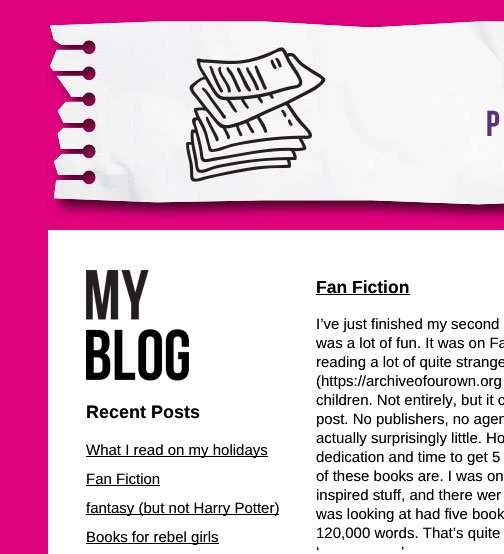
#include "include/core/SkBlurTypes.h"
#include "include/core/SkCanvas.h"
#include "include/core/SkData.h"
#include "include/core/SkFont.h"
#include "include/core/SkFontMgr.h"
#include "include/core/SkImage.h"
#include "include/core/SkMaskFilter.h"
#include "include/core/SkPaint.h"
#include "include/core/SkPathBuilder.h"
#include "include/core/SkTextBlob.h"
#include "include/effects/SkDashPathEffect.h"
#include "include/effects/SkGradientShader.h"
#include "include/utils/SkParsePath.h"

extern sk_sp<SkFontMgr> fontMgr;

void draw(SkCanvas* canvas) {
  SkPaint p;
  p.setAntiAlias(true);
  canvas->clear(SkColorSetRGB(224, 2, 125));
  canvas->drawImageRect(SkImages::DeferredFromEncodedData(SkData::MakeFromFileName("images/1.png")), SkRect::MakeLTRB(8, 8, 504, 554), SkSamplingOptions());
  p.setColor(SK_ColorWHITE);
  canvas->drawRect(SkRect::MakeLTRB(48, 230, 504, 554), p);
  canvas->drawImageRect(SkImages::DeferredFromEncodedData(SkData::MakeFromFileName("images/2.png")), SkRect::MakeLTRB(86, 270, 189, 381), SkSamplingOptions());
  p.setColor(SK_ColorBLACK);
  canvas->drawRect(SkRect::MakeLTRB(86, 456, 268, 457), p);
  canvas->drawRect(SkRect::MakeLTRB(86, 485, 160, 486), p);
  canvas->drawRect(SkRect::MakeLTRB(86, 514, 279, 515), p);
  canvas->drawRect(SkRect::MakeLTRB(86, 543, 219, 544), p);
  canvas->drawRect(SkRect::MakeLTRB(316, 294, 410, 295), p);
  SkFont font1(fontMgr->matchFamilyStyle("Bebas Neue", SkFontStyle::Normal()), 36);
  font1.setSubpixel(true);
  p.setColor(SkColorSetRGB(97, 48, 118));
  canvas->drawString("P", 486, 136, font1, p);
  SkFont font2(fontMgr->matchFamilyStyle("Liberation Sans", SkFontStyle::Bold()), 18);
  font2.setSubpixel(true);
  p.setColor(SK_ColorBLACK);
  canvas->drawString("Recent Posts", 86, 418, font2, p);
  SkFont font3(fontMgr->matchFamilyStyle("Liberation Sans", SkFontStyle::Normal()), 15);
  font3.setSubpixel(true);
  canvas->drawString("What I read on my holidays", 86, 455, font3, p);
  canvas->drawString("Fan Fiction", 86, 484, font3, p);
  canvas->drawString("fantasy (but not Harry Potter)", 86, 513, font3, p);
  canvas->drawString("Books for rebel girls", 86, 542, font3, p);
  SkFont font4(fontMgr->matchFamilyStyle("Liberation Sans", SkFontStyle::Bold()), 17.5f);
  font4.setSubpixel(true);
  canvas->drawString("Fan Fiction", 316, 293, font4, p);
  canvas->drawString("I’ve just finished my second", 316, 329, font3, p);
  canvas->drawString("was a lot of fun. It was on Fa", 316, 348, font3, p);
  canvas->drawString("reading a lot of quite strange", 316, 367, font3, p);
  canvas->drawString("(https://archiveofourown.org", 316, 386, font3, p);
  canvas->drawString("children. Not entirely, but it c", 316, 405, font3, p);
  canvas->drawString("post. No publishers, no agen", 316, 424, font3, p);
  canvas->drawString("actually surprisingly little. Ho", 316, 443, font3, p);
  canvas->drawString("dedication and time to get 5", 316, 462, font3, p);
  canvas->drawString("of these books are. I was on", 316, 481, font3, p);
  canvas->drawString("inspired stuff, and there wer", 316, 500, font3, p);
  canvas->drawString("was looking at had five book", 316, 519, font3, p);
  canvas->drawString("120,000 words. That’s quite", 316, 538, font3, p);
  canvas->drawString("‘", 316, 557, font3, p);
  canvas->drawString("’", 401, 557, font3, p);
}
